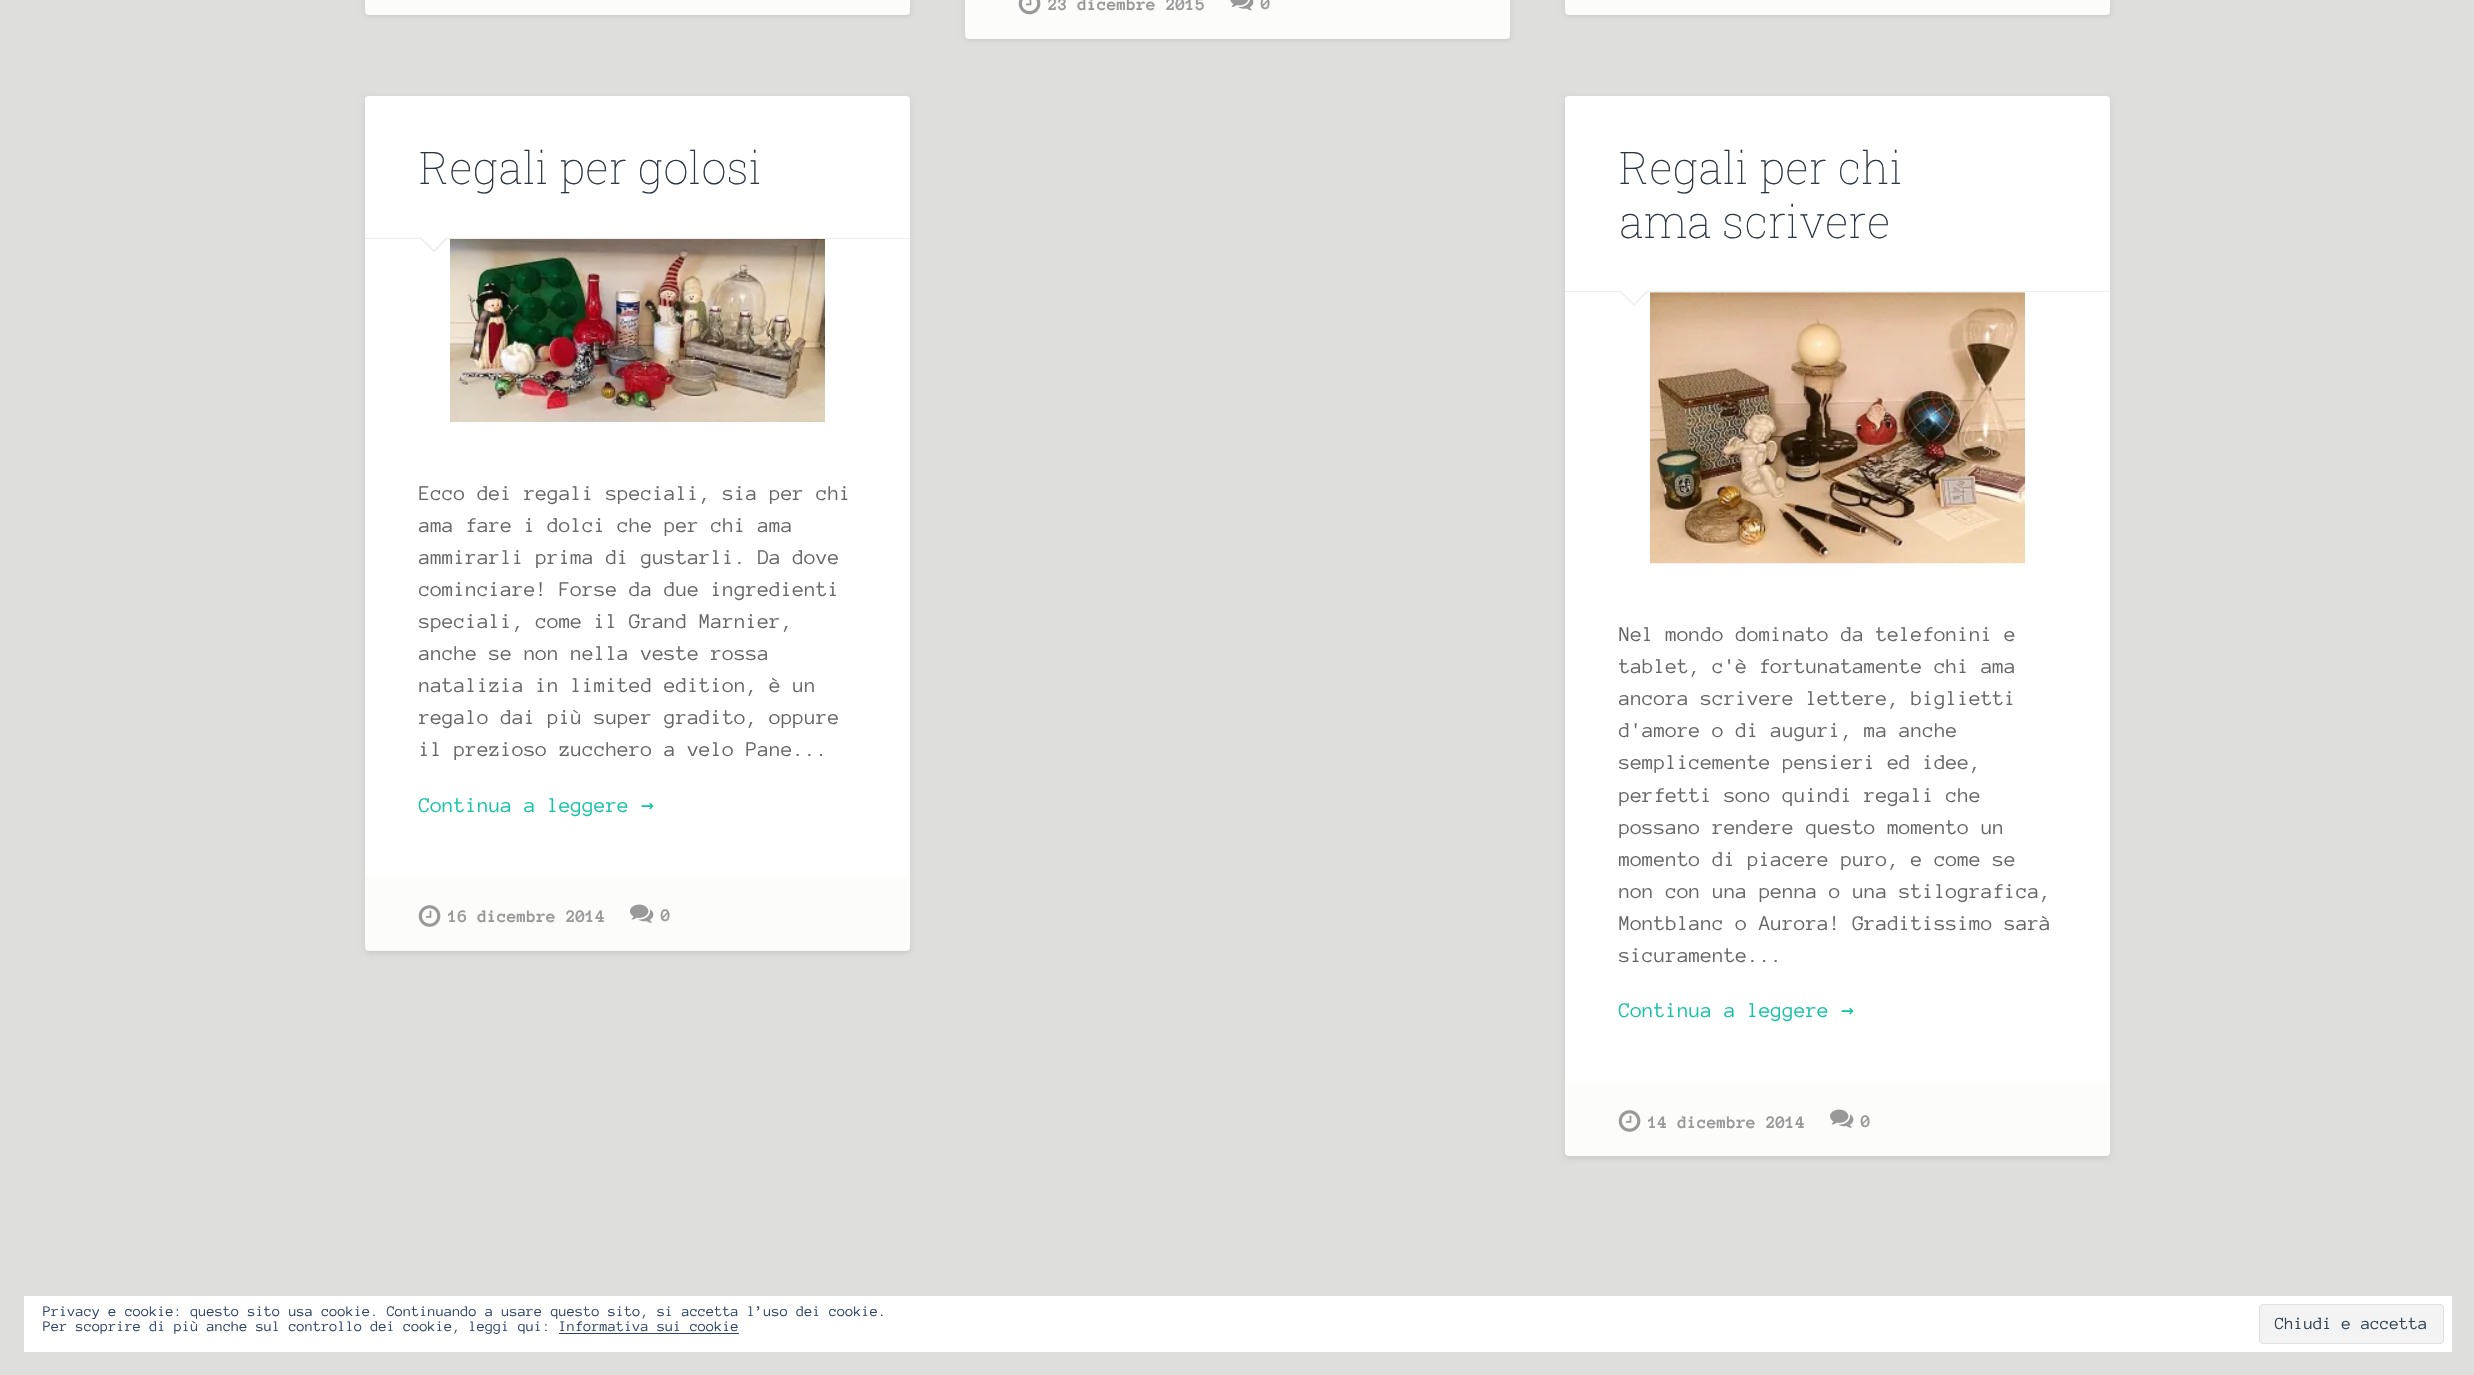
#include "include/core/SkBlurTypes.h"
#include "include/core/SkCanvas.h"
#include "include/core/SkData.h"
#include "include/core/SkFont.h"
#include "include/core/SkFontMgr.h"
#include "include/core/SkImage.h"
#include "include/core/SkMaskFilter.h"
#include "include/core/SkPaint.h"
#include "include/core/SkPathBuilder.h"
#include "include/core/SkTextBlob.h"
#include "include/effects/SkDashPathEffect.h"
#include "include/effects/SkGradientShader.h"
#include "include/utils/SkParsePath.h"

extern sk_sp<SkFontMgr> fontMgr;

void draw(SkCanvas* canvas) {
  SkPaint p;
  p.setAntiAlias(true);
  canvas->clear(SkColorSetRGB(222, 222, 220));
  p.setColor(SkColorSetARGB(26, 0, 0, 0));
  p.setMaskFilter(SkMaskFilter::MakeBlur(kNormal_SkBlurStyle, 2.5f));
  canvas->drawRoundRect(SkRect::MakeLTRB(365, -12, 910, 16), 4, 4, p);
  p.setMaskFilter(nullptr);
  p.setColor(SK_ColorWHITE);
  canvas->drawRoundRect(SkRect::MakeLTRB(365, -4, 910, 15), 4, 4, p);
  p.setColor(SkColorSetARGB(26, 222, 222, 220));
  canvas->drawPath(SkPathBuilder().moveTo(365, -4).lineTo(910, -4).lineTo(910, 11).cubicTo(910, 13, 908, 15, 906, 15).lineTo(369, 15).cubicTo(367, 15, 365, 13, 365, 11).close().detach(), p);
  p.setColor(SkColorSetARGB(26, 0, 0, 0));
  p.setMaskFilter(SkMaskFilter::MakeBlur(kNormal_SkBlurStyle, 2.5f));
  canvas->drawRoundRect(SkRect::MakeLTRB(965, -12, 1510, 40), 4, 4, p);
  p.setMaskFilter(nullptr);
  p.setColor(SK_ColorWHITE);
  canvas->drawRoundRect(SkRect::MakeLTRB(965, -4, 1510, 39), 4, 4, p);
  p.setColor(SkColorSetARGB(26, 222, 222, 220));
  canvas->drawPath(SkPathBuilder().moveTo(965, -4).lineTo(1510, -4).lineTo(1510, 35).cubicTo(1510, 37, 1508, 39, 1506, 39).lineTo(969, 39).cubicTo(967, 39, 965, 37, 965, 35).close().detach(), p);
  canvas->drawImageRect(SkImages::DeferredFromEncodedData(SkData::MakeFromFileName("images/1.png")), SkRect::MakeLTRB(1018, 0, 1041, 15), SkSamplingOptions());
  canvas->drawImageRect(SkImages::DeferredFromEncodedData(SkData::MakeFromFileName("images/2.png")), SkRect::MakeLTRB(1230, 0, 1254, 11), SkSamplingOptions());
  p.setColor(SkColorSetARGB(26, 0, 0, 0));
  p.setMaskFilter(SkMaskFilter::MakeBlur(kNormal_SkBlurStyle, 2.5f));
  canvas->drawRoundRect(SkRect::MakeLTRB(1565, -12, 2110, 16), 4, 4, p);
  p.setMaskFilter(nullptr);
  p.setColor(SK_ColorWHITE);
  canvas->drawRoundRect(SkRect::MakeLTRB(1565, -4, 2110, 15), 4, 4, p);
  p.setColor(SkColorSetARGB(26, 222, 222, 220));
  canvas->drawPath(SkPathBuilder().moveTo(1565, -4).lineTo(2110, -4).lineTo(2110, 11).cubicTo(2110, 13, 2108, 15, 2106, 15).lineTo(1569, 15).cubicTo(1567, 15, 1565, 13, 1565, 11).close().detach(), p);
  p.setColor(SkColorSetARGB(26, 0, 0, 0));
  p.setMaskFilter(SkMaskFilter::MakeBlur(kNormal_SkBlurStyle, 2.5f));
  canvas->drawRoundRect(SkRect::MakeLTRB(365, 98, 910, 953), 4, 4, p);
  p.setMaskFilter(nullptr);
  p.setColor(SK_ColorWHITE);
  canvas->drawRoundRect(SkRect::MakeLTRB(365, 96, 910, 951), 4, 4, p);
  p.setColor(SkColorSetRGB(238, 238, 238));
  canvas->drawRect(SkRect::MakeLTRB(365, 238, 910, 239), p);
  canvas->drawPath(SkPathBuilder().moveTo(419, 237.5f).lineTo(449, 237.5f).lineTo(434, 252.5f).close().detach(), p);
  p.setColor(SK_ColorWHITE);
  canvas->drawPath(SkPathBuilder().moveTo(420, 236).lineTo(447.5f, 236).lineTo(434, 250).close().detach(), p);
  canvas->drawImageRect(SkImages::DeferredFromEncodedData(SkData::MakeFromFileName("images/3.png")), SkRect::MakeLTRB(450, 239, 825, 423), SkSamplingOptions());
  p.setColor(SkColorSetARGB(26, 222, 222, 220));
  canvas->drawPath(SkPathBuilder().moveTo(365, 876).lineTo(910, 876).lineTo(910, 947).cubicTo(910, 949, 908, 951, 906, 951).lineTo(369, 951).cubicTo(367, 951, 365, 949, 365, 947).close().detach(), p);
  canvas->drawImageRect(SkImages::DeferredFromEncodedData(SkData::MakeFromFileName("images/4.png")), SkRect::MakeLTRB(418, 905, 441, 927), SkSamplingOptions());
  canvas->drawImageRect(SkImages::DeferredFromEncodedData(SkData::MakeFromFileName("images/5.png")), SkRect::MakeLTRB(630, 904, 654, 923), SkSamplingOptions());
  p.setColor(SkColorSetARGB(26, 0, 0, 0));
  p.setMaskFilter(SkMaskFilter::MakeBlur(kNormal_SkBlurStyle, 2.5f));
  canvas->drawRoundRect(SkRect::MakeLTRB(1565, 98, 2110, 1158), 4, 4, p);
  p.setMaskFilter(nullptr);
  p.setColor(SK_ColorWHITE);
  canvas->drawRoundRect(SkRect::MakeLTRB(1565, 96, 2110, 1156), 4, 4, p);
  p.setColor(SkColorSetRGB(238, 238, 238));
  canvas->drawRect(SkRect::MakeLTRB(1565, 291, 2110, 292), p);
  canvas->drawPath(SkPathBuilder().moveTo(1619, 291).lineTo(1649, 291).lineTo(1634, 306).close().detach(), p);
  p.setColor(SK_ColorWHITE);
  canvas->drawPath(SkPathBuilder().moveTo(1620, 290).lineTo(1647.5f, 290).lineTo(1634, 304).close().detach(), p);
  canvas->drawImageRect(SkImages::DeferredFromEncodedData(SkData::MakeFromFileName("images/6.png")), SkRect::MakeLTRB(1650, 292, 2025, 564), SkSamplingOptions());
  p.setColor(SkColorSetARGB(26, 222, 222, 220));
  canvas->drawPath(SkPathBuilder().moveTo(1565, 1081).lineTo(2110, 1081).lineTo(2110, 1152).cubicTo(2110, 1154, 2108, 1156, 2106, 1156).lineTo(1569, 1156).cubicTo(1567, 1156, 1565, 1154, 1565, 1152).close().detach(), p);
  canvas->drawImageRect(SkImages::DeferredFromEncodedData(SkData::MakeFromFileName("images/4.png")), SkRect::MakeLTRB(1618, 1110, 1641, 1132), SkSamplingOptions());
  canvas->drawImageRect(SkImages::DeferredFromEncodedData(SkData::MakeFromFileName("images/5.png")), SkRect::MakeLTRB(1830, 1109, 1854, 1128), SkSamplingOptions());
  p.setColor(SK_ColorWHITE);
  canvas->drawRect(SkRect::MakeLTRB(24, 1296, 2452, 1352), p);
  p.setColor(SkColorSetRGB(243, 243, 243));
  canvas->drawRoundRect(SkRect::MakeLTRB(2259.5f, 1304.5f, 2443.5f, 1343.5f), 3.5f, 3.5f, p);
  p.setStyle(SkPaint::kStroke_Style);
  p.setStrokeWidth(1);
  p.setColor(SkColorSetRGB(222, 222, 222));
  canvas->drawRoundRect(SkRect::MakeLTRB(2259.5f, 1304.5f, 2443.5f, 1343.5f), 3.5f, 3.5f, p);
  p.setStyle(SkPaint::kFill_Style);
  p.setColor(SkColorSetRGB(46, 68, 103));
  canvas->drawRect(SkRect::MakeLTRB(559, 1333, 739, 1334), p);
  SkFont font1(fontMgr->matchFamilyStyle("Anonymous Pro", SkFontStyle::Bold()), 18);
  font1.setSubpixel(true);
  p.setColor(SkColorSetRGB(153, 153, 153));
  canvas->drawString("23 dicembre 2015", 1048, 10, font1, p);
  canvas->drawString("0", 1261, 9, font1, p);
  SkFont font2(fontMgr->matchFamilyStyle("Roboto Slab", SkFontStyle(100, SkFontStyle::kNormal_Width, SkFontStyle::kUpright_Slant)), 45);
  font2.setSubpixel(true);
  p.setColor(SkColorSetRGB(43, 53, 66));
  canvas->drawString("Regali per golosi", 419, 184, font2, p);
  SkFont font3(fontMgr->matchFamilyStyle("Anonymous Pro", SkFontStyle::Normal()), 21.4f);
  font3.setSubpixel(true);
  p.setColor(SkColorSetRGB(102, 102, 102));
  canvas->drawString("Ecco dei regali speciali, sia per chi", 419, 500, font3, p);
  canvas->drawString("ama fare i dolci che per chi ama", 419, 532, font3, p);
  canvas->drawString("ammirarli prima di gustarli. Da dove", 419, 564, font3, p);
  canvas->drawString("cominciare! Forse da due ingredienti", 419, 596, font3, p);
  canvas->drawString("speciali, come il Grand Marnier,", 419, 628, font3, p);
  canvas->drawString("anche se non nella veste rossa", 419, 660, font3, p);
  canvas->drawString("natalizia in limited edition, è un", 419, 692, font3, p);
  canvas->drawString("regalo dai più super gradito, oppure", 419, 724, font3, p);
  canvas->drawString("il prezioso zucchero a velo Pane...", 419, 756, font3, p);
  p.setColor(SkColorSetRGB(19, 196, 165));
  canvas->drawString("Continua a leggere", 419, 812, font3, p);
  SkFont font4(fontMgr->matchFamilyStyle("DejaVu Sans Mono", SkFontStyle::Normal()), 21.4f);
  font4.setSubpixel(true);
  canvas->drawString("→", 641, 812, font4, p);
  p.setColor(SkColorSetRGB(153, 153, 153));
  canvas->drawString("16 dicembre 2014", 448, 922, font1, p);
  canvas->drawString("0", 661, 921, font1, p);
  p.setColor(SkColorSetRGB(43, 53, 66));
  canvas->drawString("Regali per chi", 1619, 184, font2, p);
  canvas->drawString("ama scrivere", 1619, 238, font2, p);
  p.setColor(SkColorSetRGB(102, 102, 102));
  canvas->drawString("Nel mondo dominato da telefonini e", 1619, 641, font3, p);
  canvas->drawString("tablet, c'è fortunatamente chi ama", 1619, 673, font3, p);
  canvas->drawString("ancora scrivere lettere, biglietti", 1619, 705, font3, p);
  canvas->drawString("d'amore o di auguri, ma anche", 1619, 737, font3, p);
  canvas->drawString("semplicemente pensieri ed idee,", 1619, 769, font3, p);
  canvas->drawString("perfetti sono quindi regali che", 1619, 802, font3, p);
  canvas->drawString("possano rendere questo momento un", 1619, 834, font3, p);
  canvas->drawString("momento di piacere puro, e come se", 1619, 866, font3, p);
  canvas->drawString("non con una penna o una stilografica,", 1619, 898, font3, p);
  canvas->drawString("Montblanc o Aurora! Graditissimo sarà", 1619, 930, font3, p);
  canvas->drawString("sicuramente...", 1619, 962, font3, p);
  p.setColor(SkColorSetRGB(19, 196, 165));
  canvas->drawString("Continua a leggere", 1619, 1017, font3, p);
  canvas->drawString("→", 1841, 1017, font4, p);
  p.setColor(SkColorSetRGB(153, 153, 153));
  canvas->drawString("14 dicembre 2014", 1648, 1128, font1, p);
  canvas->drawString("0", 1861, 1127, font1, p);
  SkFont font5(fontMgr->matchFamilyStyle("Anonymous Pro", SkFontStyle::Normal()), 15);
  font5.setSubpixel(true);
  p.setColor(SkColorSetRGB(46, 68, 103));
  canvas->drawString("Privacy e cookie: questo sito usa cookie. Continuando a usare questo sito, si accetta l’uso dei cookie.", 43, 1316, font5, p);
  canvas->drawString("Per scoprire di più anche sul controllo dei cookie, leggi qui: Informativa sui cookie", 43, 1331, font5, p);
  SkFont font6(fontMgr->matchFamilyStyle("Anonymous Pro", SkFontStyle::Normal()), 17.5f);
  font6.setSubpixel(true);
  p.setColor(SkColorSetRGB(46, 68, 83));
  canvas->drawString("Chiudi e accetta", 2275, 1329, font6, p);
}
